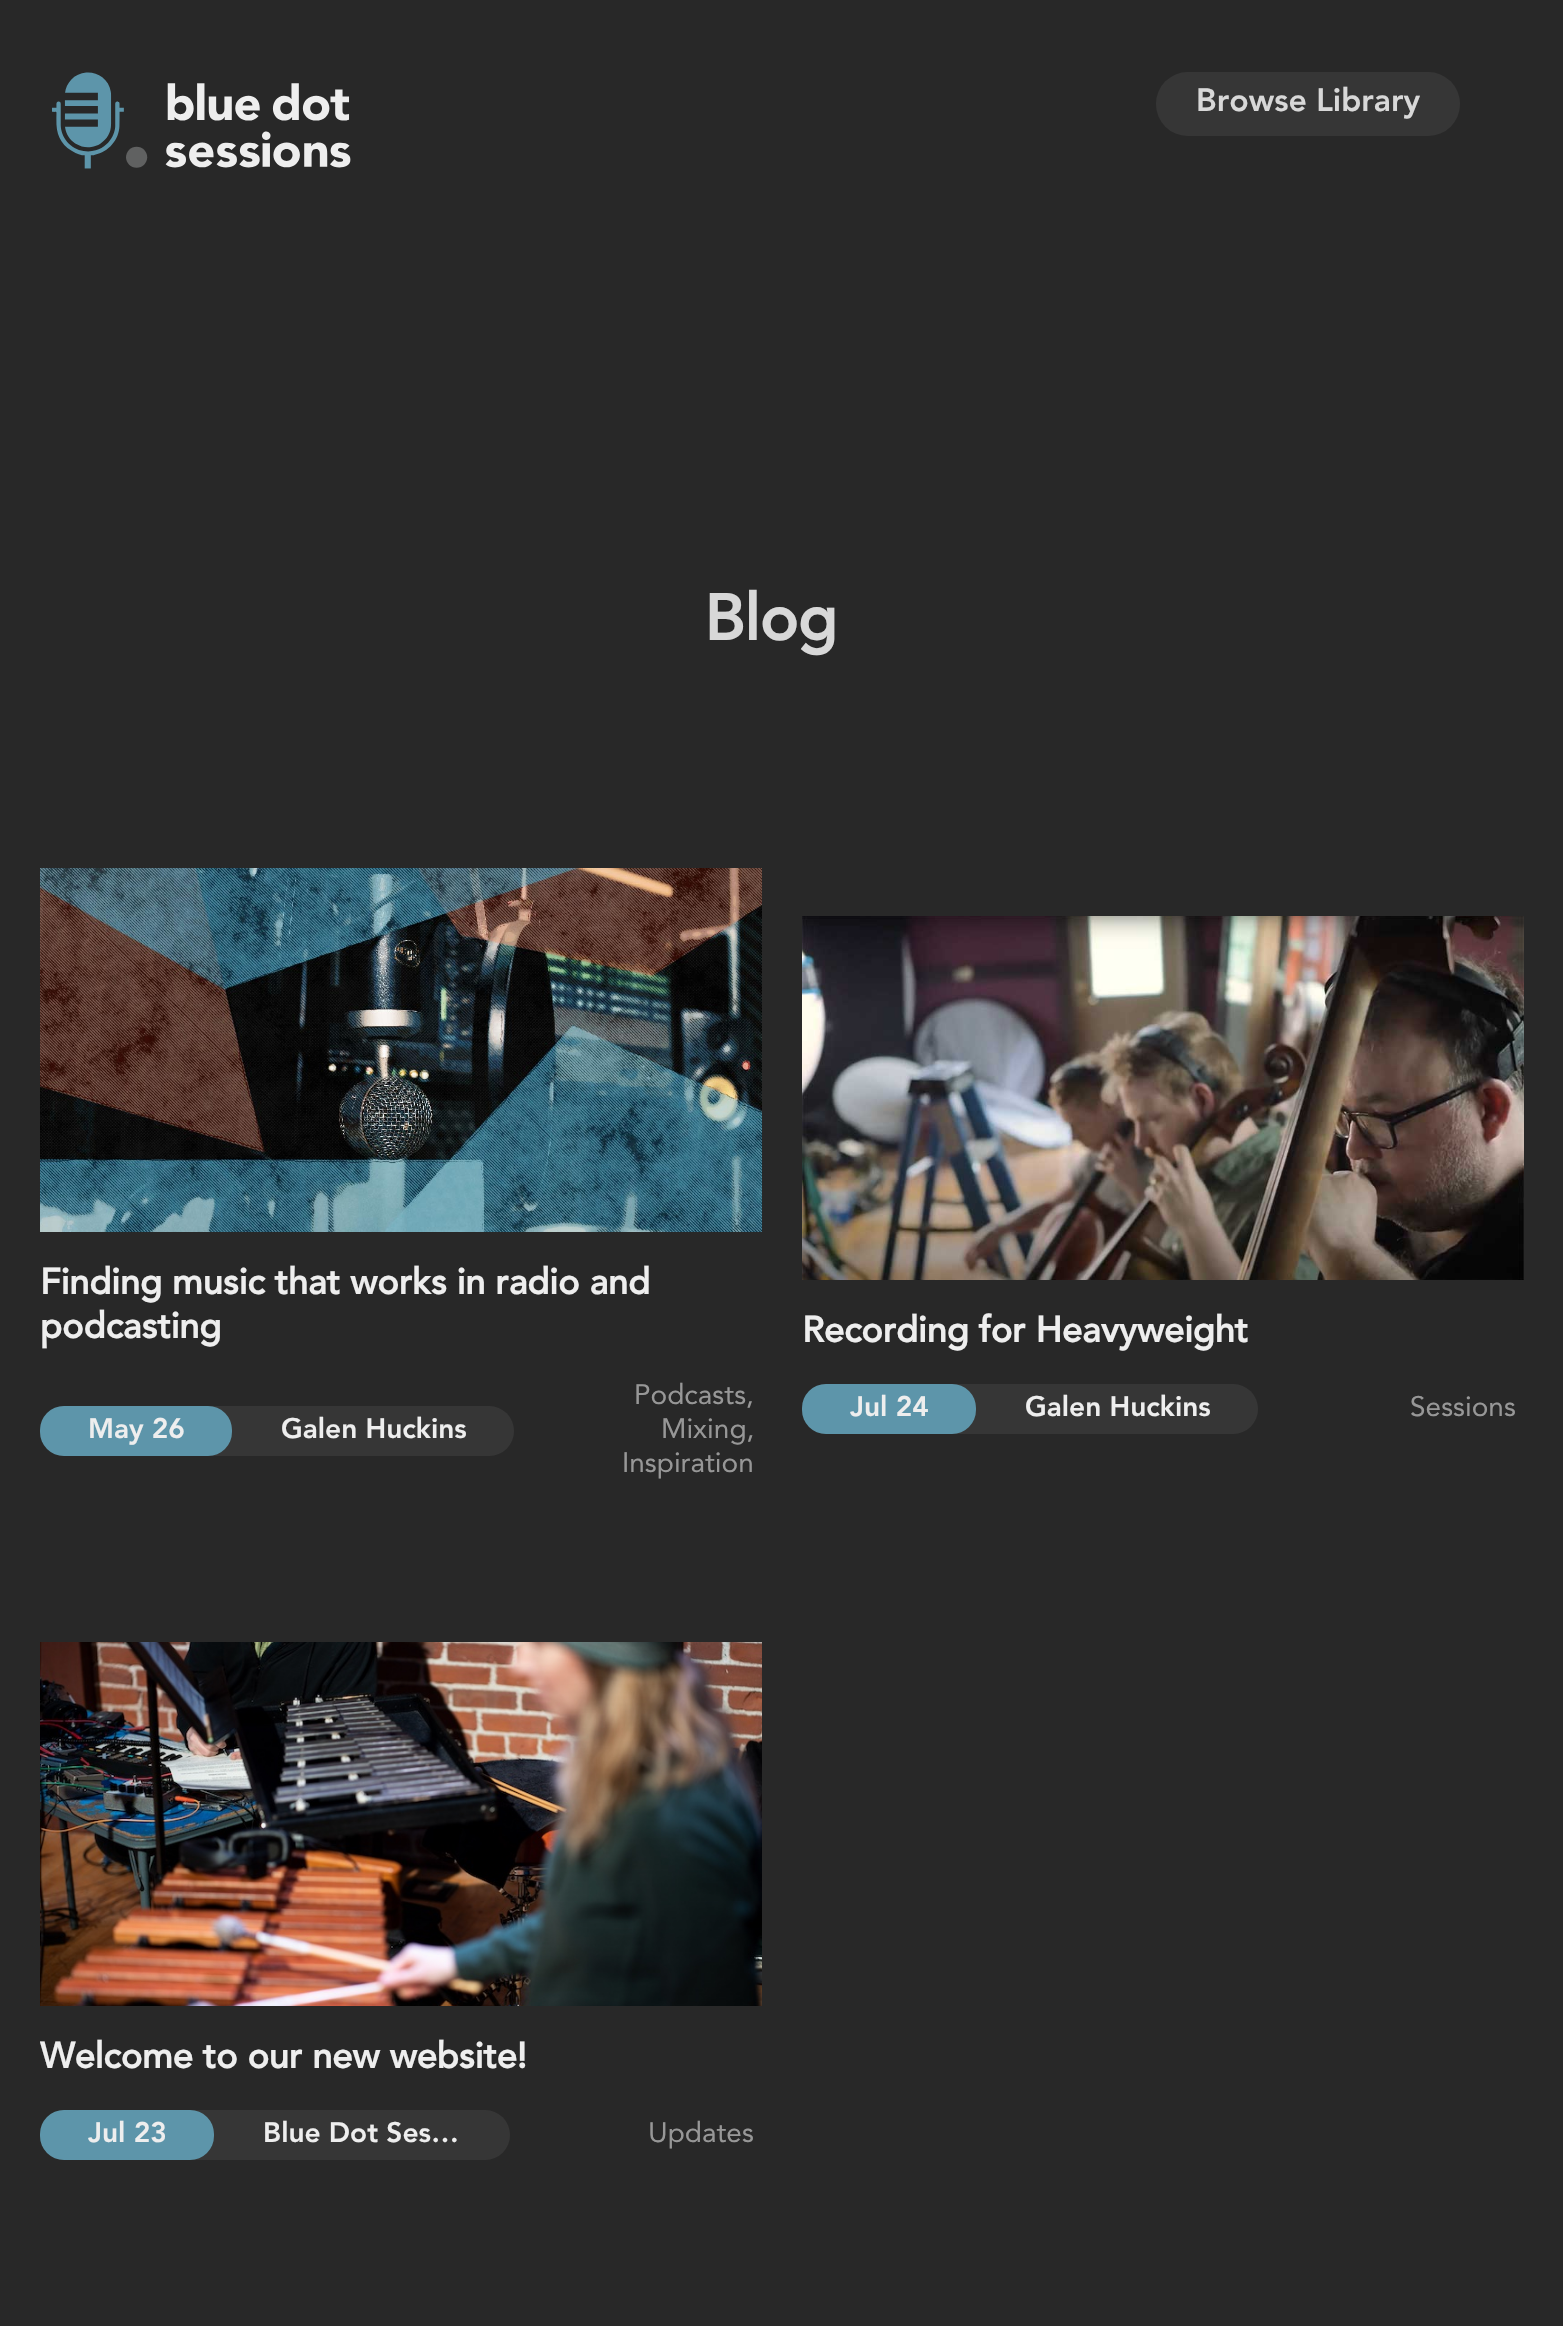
#include "include/core/SkBlurTypes.h"
#include "include/core/SkCanvas.h"
#include "include/core/SkData.h"
#include "include/core/SkFont.h"
#include "include/core/SkFontMgr.h"
#include "include/core/SkImage.h"
#include "include/core/SkMaskFilter.h"
#include "include/core/SkPaint.h"
#include "include/core/SkPathBuilder.h"
#include "include/core/SkTextBlob.h"
#include "include/effects/SkDashPathEffect.h"
#include "include/effects/SkGradientShader.h"
#include "include/utils/SkParsePath.h"

extern sk_sp<SkFontMgr> fontMgr;

void draw(SkCanvas* canvas) {
  SkPaint p;
  p.setAntiAlias(true);
  canvas->clear(SkColorSetRGB(40, 40, 40));
  canvas->drawImageRect(SkImages::DeferredFromEncodedData(SkData::MakeFromFileName("images/1.png")), SkRect::MakeLTRB(52, 72, 351, 169), SkSamplingOptions());
  p.setColor(SkColorSetRGB(54, 54, 54));
  canvas->drawRoundRect(SkRect::MakeLTRB(1156, 72, 1460, 136), 32, 32, p);
  canvas->drawImageRect(SkImages::DeferredFromEncodedData(SkData::MakeFromFileName("images/2.png")), SkRect::MakeLTRB(40, 868, 762, 1232), SkSamplingOptions());
  canvas->drawRoundRect(SkRect::MakeLTRB(40, 1406, 514, 1456), 25, 25, p);
  p.setColor(SkColorSetRGB(93, 149, 170));
  canvas->drawRoundRect(SkRect::MakeLTRB(40, 1406, 232, 1456), 24, 24, p);
  canvas->drawImageRect(SkImages::DeferredFromEncodedData(SkData::MakeFromFileName("images/3.png")), SkRect::MakeLTRB(802, 916, 1524, 1280), SkSamplingOptions());
  p.setColor(SkColorSetRGB(54, 54, 54));
  canvas->drawRoundRect(SkRect::MakeLTRB(802, 1384, 1258, 1434), 25, 25, p);
  p.setColor(SkColorSetRGB(93, 149, 170));
  canvas->drawRoundRect(SkRect::MakeLTRB(802, 1384, 976, 1434), 24, 24, p);
  canvas->drawImageRect(SkImages::DeferredFromEncodedData(SkData::MakeFromFileName("images/4.png")), SkRect::MakeLTRB(40, 1642, 762, 2006), SkSamplingOptions());
  p.setColor(SkColorSetRGB(54, 54, 54));
  canvas->drawRoundRect(SkRect::MakeLTRB(40, 2110, 510, 2160), 25, 25, p);
  p.setColor(SkColorSetRGB(93, 149, 170));
  canvas->drawRoundRect(SkRect::MakeLTRB(40, 2110, 214, 2160), 24, 24, p);
  SkFont font1(fontMgr->matchFamilyStyle("Avenir", SkFontStyle::Normal()), 32);
  font1.setSubpixel(true);
  p.setColor(SkColorSetRGB(216, 216, 216));
  canvas->drawString("Browse Library", 1196, 111, font1, p);
  SkFont font2(fontMgr->matchFamilyStyle("Avenir", SkFontStyle::Bold()), 64);
  font2.setSubpixel(true);
  canvas->drawString("Blog", 704, 640, font2, p);
  SkFont font3(fontMgr->matchFamilyStyle("Avenir", SkFontStyle::Bold()), 36);
  font3.setSubpixel(true);
  p.setColor(SkColorSetRGB(238, 238, 238));
  canvas->drawString("Finding music that works in radio and", 40, 1294, font3, p);
  canvas->drawString("podcasting", 40, 1338, font3, p);
  SkFont font4(fontMgr->matchFamilyStyle("Avenir", SkFontStyle::Normal()), 28);
  font4.setSubpixel(true);
  canvas->drawString("May 26", 88, 1438, font4, p);
  canvas->drawString("Galen Huckins", 281, 1438, font4, p);
  SkFont font5(fontMgr->matchFamilyStyle("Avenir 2", SkFontStyle::Normal()), 28);
  font5.setSubpixel(true);
  p.setColor(SkColorSetRGB(151, 151, 151));
  canvas->drawString("Podcasts,", 634, 1404, font5, p);
  canvas->drawString("Mixing,", 661, 1438, font5, p);
  canvas->drawString("Inspiration", 622, 1472, font5, p);
  p.setColor(SkColorSetRGB(238, 238, 238));
  canvas->drawString("Recording for Heavyweight", 802, 1342, font3, p);
  canvas->drawString("Jul 24", 850, 1416, font4, p);
  canvas->drawString("Galen Huckins", 1025, 1416, font4, p);
  p.setColor(SkColorSetRGB(151, 151, 151));
  canvas->drawString("Sessions", 1410, 1416, font5, p);
  p.setColor(SkColorSetRGB(238, 238, 238));
  canvas->drawString("Welcome to our new website!", 40, 2068, font3, p);
  canvas->drawString("Jul 23", 88, 2142, font4, p);
  canvas->drawString("Blue Dot Ses…", 263, 2142, font4, p);
  p.setColor(SkColorSetRGB(151, 151, 151));
  canvas->drawString("Updates", 648, 2142, font5, p);
}
